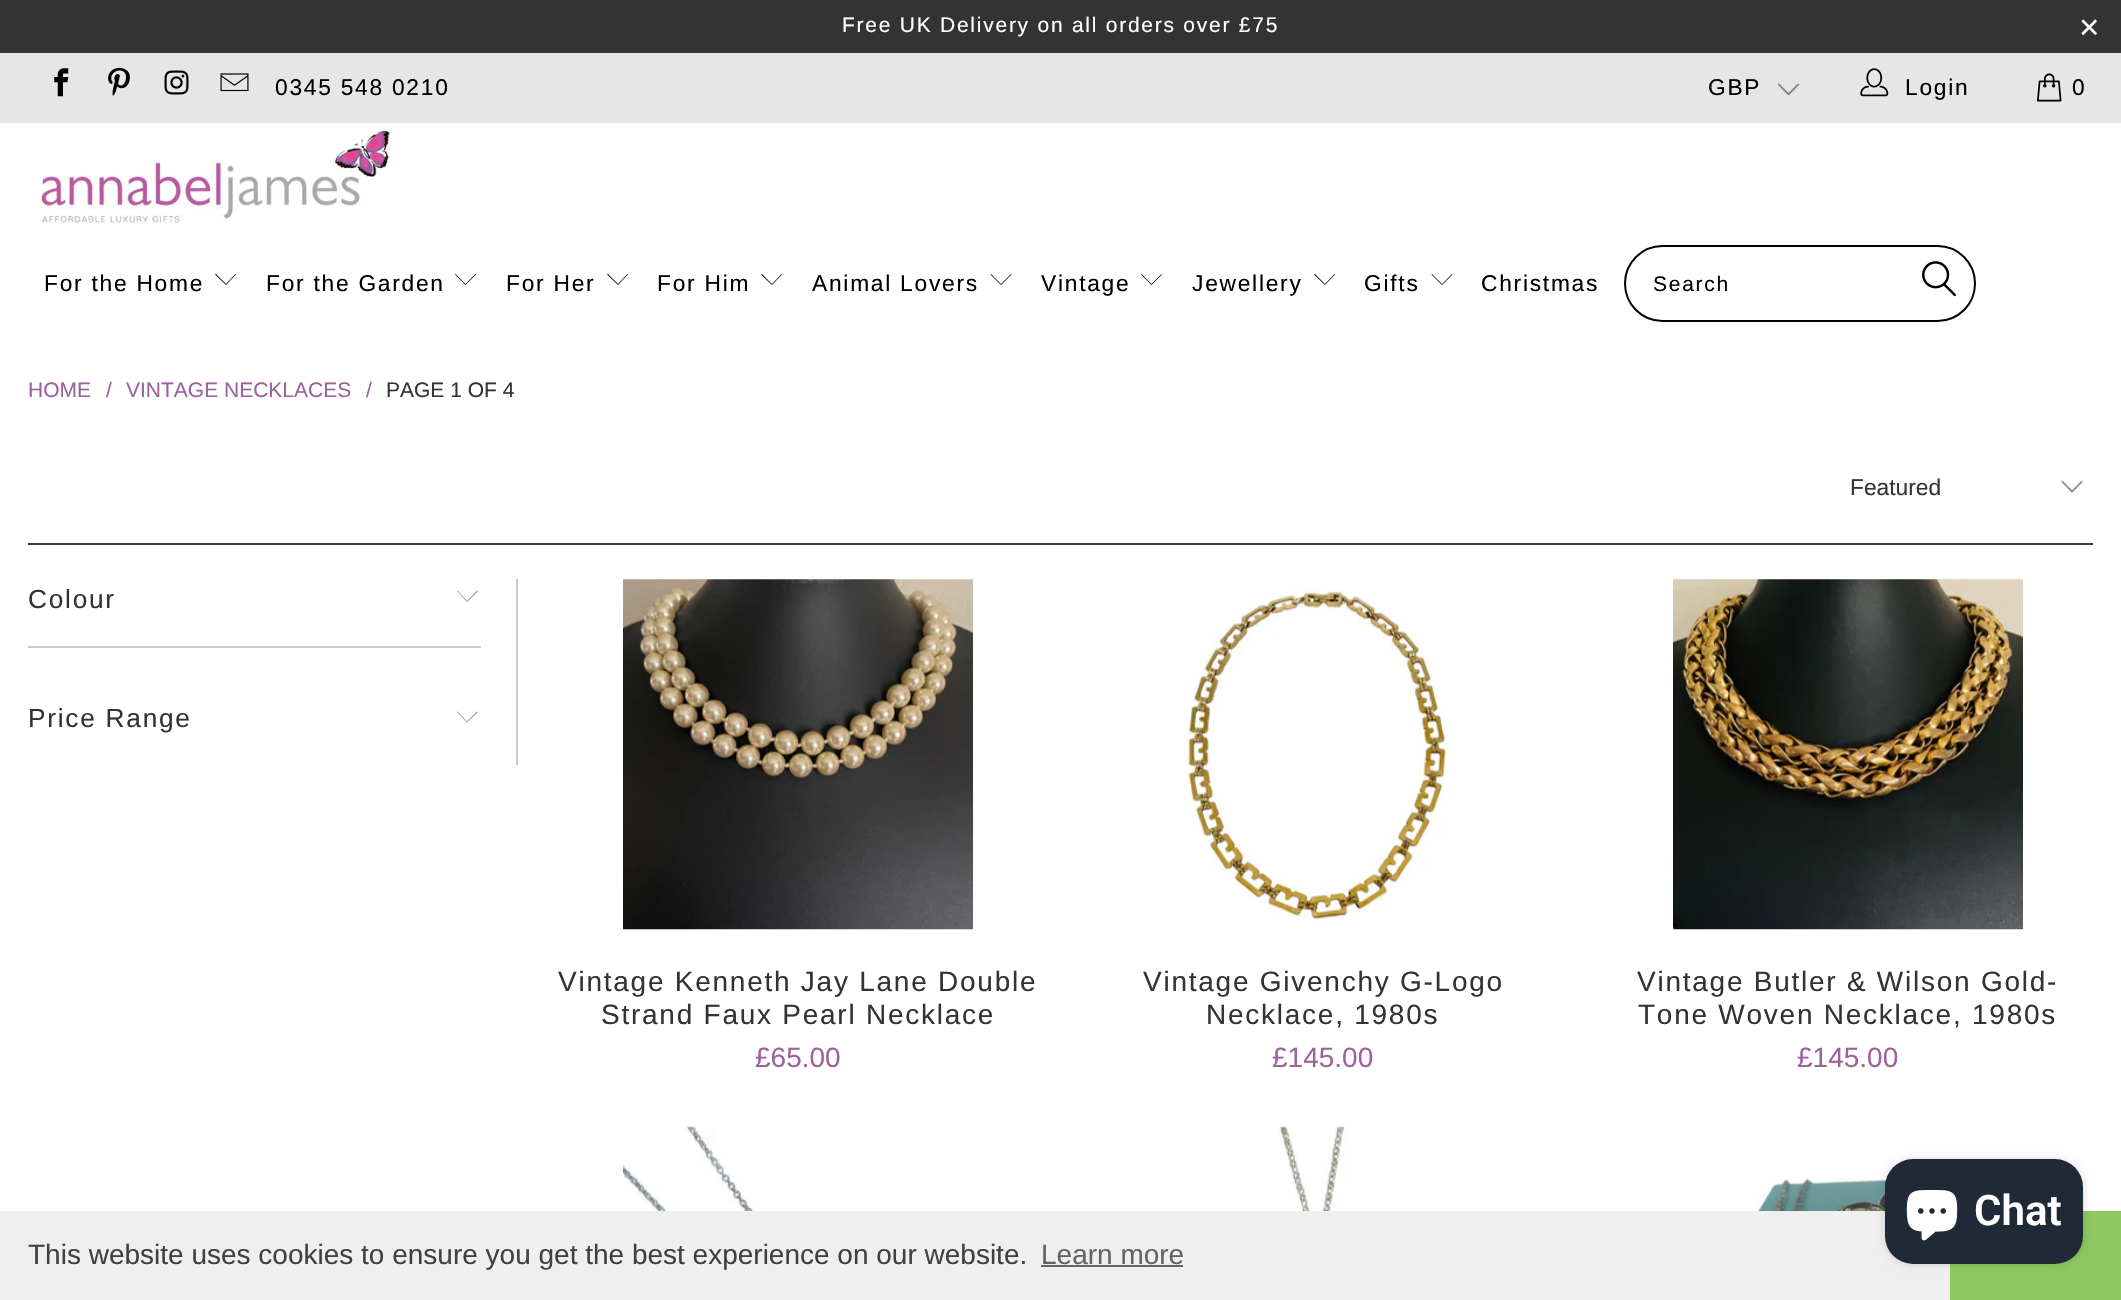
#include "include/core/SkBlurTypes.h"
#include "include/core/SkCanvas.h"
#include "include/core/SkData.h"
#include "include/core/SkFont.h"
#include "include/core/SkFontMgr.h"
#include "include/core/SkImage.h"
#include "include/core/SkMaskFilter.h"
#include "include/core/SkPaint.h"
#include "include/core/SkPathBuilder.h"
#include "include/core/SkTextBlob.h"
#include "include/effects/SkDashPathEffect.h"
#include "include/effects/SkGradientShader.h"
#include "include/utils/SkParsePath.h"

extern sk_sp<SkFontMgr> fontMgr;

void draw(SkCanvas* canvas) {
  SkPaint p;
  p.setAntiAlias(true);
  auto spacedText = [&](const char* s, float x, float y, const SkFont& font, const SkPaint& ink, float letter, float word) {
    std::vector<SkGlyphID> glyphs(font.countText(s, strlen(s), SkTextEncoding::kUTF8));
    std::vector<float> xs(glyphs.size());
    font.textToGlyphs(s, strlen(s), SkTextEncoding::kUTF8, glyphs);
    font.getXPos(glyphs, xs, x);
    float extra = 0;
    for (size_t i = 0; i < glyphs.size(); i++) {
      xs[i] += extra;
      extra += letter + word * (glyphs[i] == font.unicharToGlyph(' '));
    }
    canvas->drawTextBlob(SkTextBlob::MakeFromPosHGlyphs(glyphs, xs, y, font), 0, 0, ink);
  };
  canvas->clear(SK_ColorWHITE);
  p.setColor(SkColorSetRGB(51, 51, 51));
  canvas->drawRect(SkRect::MakeLTRB(0, 0, 2121, 53), p);
  p.setColor(SkColorSetRGB(230, 230, 230));
  canvas->drawRect(SkRect::MakeLTRB(0, 53, 2121, 123), p);
  canvas->drawImageRect(SkImages::DeferredFromEncodedData(SkData::MakeFromFileName("images/1.png")), SkRect::MakeLTRB(54, 68, 69, 97), SkSamplingOptions());
  canvas->drawImageRect(SkImages::DeferredFromEncodedData(SkData::MakeFromFileName("images/2.png")), SkRect::MakeLTRB(108, 67, 130, 96), SkSamplingOptions());
  canvas->drawImageRect(SkImages::DeferredFromEncodedData(SkData::MakeFromFileName("images/3.png")), SkRect::MakeLTRB(164, 70, 189, 95), SkSamplingOptions());
  canvas->drawImageRect(SkImages::DeferredFromEncodedData(SkData::MakeFromFileName("images/4.png")), SkRect::MakeLTRB(220, 73, 249, 92), SkSamplingOptions());
  canvas->drawImageRect(SkImages::DeferredFromEncodedData(SkData::MakeFromFileName("images/5.png")), SkRect::MakeLTRB(1778, 82, 1800, 96), SkSamplingOptions());
  canvas->drawImageRect(SkImages::DeferredFromEncodedData(SkData::MakeFromFileName("images/6.png")), SkRect::MakeLTRB(1860, 68, 1889, 97), SkSamplingOptions());
  canvas->drawImageRect(SkImages::DeferredFromEncodedData(SkData::MakeFromFileName("images/7.png")), SkRect::MakeLTRB(2037, 73, 2062, 102), SkSamplingOptions());
  canvas->drawImageRect(SkImages::DeferredFromEncodedData(SkData::MakeFromFileName("images/8.png")), SkRect::MakeLTRB(39, 126, 391, 224), SkSamplingOptions());
  p.setColor(SK_ColorBLACK);
  canvas->drawPath(SkPathBuilder().moveTo(226, 285).lineTo(215, 274.5f).lineTo(216, 274).lineTo(226, 284).lineTo(235.5f, 274).lineTo(236, 274.5f).close().detach(), p);
  canvas->drawPath(SkPathBuilder().moveTo(465.5f, 285).lineTo(455, 274.5f).lineTo(455.5f, 274).lineTo(465.5f, 284).lineTo(475.5f, 274).lineTo(476, 274.5f).close().detach(), p);
  canvas->drawPath(SkPathBuilder().moveTo(618, 285).lineTo(607, 274.5f).lineTo(608, 274).lineTo(618, 284).lineTo(627.5f, 274).lineTo(628, 274.5f).close().detach(), p);
  canvas->drawPath(SkPathBuilder().moveTo(772, 285).lineTo(761, 274.5f).lineTo(762, 274).lineTo(772, 284).lineTo(781.5f, 274).lineTo(782, 274.5f).close().detach(), p);
  canvas->drawPath(SkPathBuilder().moveTo(1001, 285).lineTo(990.5f, 274.5f).lineTo(991, 274).lineTo(1001, 284).lineTo(1011, 274).lineTo(1011.5f, 274.5f).close().detach(), p);
  canvas->drawPath(SkPathBuilder().moveTo(1151.5f, 285).lineTo(1141, 274.5f).lineTo(1141.5f, 274).lineTo(1151.5f, 284).lineTo(1161.5f, 274).lineTo(1162, 274.5f).close().detach(), p);
  canvas->drawPath(SkPathBuilder().moveTo(1325, 285).lineTo(1314, 274.5f).lineTo(1315, 274).lineTo(1325, 284).lineTo(1334.5f, 274).lineTo(1335, 274.5f).close().detach(), p);
  canvas->drawPath(SkPathBuilder().moveTo(1442, 285).lineTo(1431.5f, 274.5f).lineTo(1432, 274).lineTo(1442, 284).lineTo(1452, 274).lineTo(1452.5f, 274.5f).close().detach(), p);
  p.setStyle(SkPaint::kStroke_Style);
  p.setStrokeWidth(2);
  canvas->drawRoundRect(SkRect::MakeLTRB(1625, 246, 1975, 321), 37.5f, 37.5f, p);
  canvas->drawImageRect(SkImages::DeferredFromEncodedData(SkData::MakeFromFileName("images/9.png")), SkRect::MakeLTRB(1922, 261, 1956, 297), SkSamplingOptions());
  canvas->drawImageRect(SkImages::DeferredFromEncodedData(SkData::MakeFromFileName("images/10.png")), SkRect::MakeLTRB(2061, 480, 2083, 493), SkSamplingOptions());
  p.setStyle(SkPaint::kFill_Style);
  p.setColor(SkColorSetRGB(60, 60, 60));
  canvas->drawRect(SkRect::MakeLTRB(28, 543, 2093, 545), p);
  p.setColor(SkColorSetRGB(204, 204, 204));
  canvas->drawRect(SkRect::MakeLTRB(516, 579, 518, 765), p);
  canvas->drawRect(SkRect::MakeLTRB(28, 646, 481, 648), p);
  p.setColor(SkColorSetRGB(140, 139, 139));
  canvas->drawPath(SkPathBuilder().moveTo(467, 602).lineTo(457, 591).lineTo(457.5f, 590.5f).lineTo(467, 601).lineTo(477, 590.5f).lineTo(478, 591).close().detach(), p);
  canvas->drawPath(SkPathBuilder().moveTo(467, 722.5f).lineTo(457, 712).lineTo(457.5f, 711.5f).lineTo(467, 721.5f).lineTo(477, 711.5f).lineTo(478, 712).close().detach(), p);
  canvas->drawImageRect(SkImages::DeferredFromEncodedData(SkData::MakeFromFileName("images/11.png")), SkRect::MakeLTRB(623, 579, 973, 930), SkSamplingOptions());
  canvas->drawImageRect(SkImages::DeferredFromEncodedData(SkData::MakeFromFileName("images/12.png")), SkRect::MakeLTRB(1185, 589, 1447, 922), SkSamplingOptions());
  canvas->drawImageRect(SkImages::DeferredFromEncodedData(SkData::MakeFromFileName("images/13.png")), SkRect::MakeLTRB(1673, 579, 2023, 930), SkSamplingOptions());
  canvas->drawImageRect(SkImages::DeferredFromEncodedData(SkData::MakeFromFileName("images/14.png")), SkRect::MakeLTRB(623, 1126, 824, 1211), SkSamplingOptions());
  canvas->drawImageRect(SkImages::DeferredFromEncodedData(SkData::MakeFromFileName("images/15.png")), SkRect::MakeLTRB(1273, 1126, 1390, 1211), SkSamplingOptions());
  canvas->drawImageRect(SkImages::DeferredFromEncodedData(SkData::MakeFromFileName("images/16.png")), SkRect::MakeLTRB(1711, 1178, 1887, 1211), SkSamplingOptions());
  p.setColor(SkColorSetRGB(239, 239, 239));
  canvas->drawRect(SkRect::MakeLTRB(0, 1211, 1950, 1300), p);
  p.setColor(SkColorSetRGB(142, 199, 96));
  canvas->drawRect(SkRect::MakeLTRB(1950, 1211, 2121, 1300), p);
  p.setColor(SkColorSetARGB(38, 0, 0, 0));
  p.setMaskFilter(SkMaskFilter::MakeBlur(kNormal_SkBlurStyle, 4.5f));
  canvas->drawRoundRect(SkRect::MakeLTRB(1885, 1159, 2083, 1264), 28, 28, p);
  p.setMaskFilter(nullptr);
  p.setColor(SkColorSetRGB(32, 42, 54));
  canvas->drawRoundRect(SkRect::MakeLTRB(1885, 1159, 2083, 1264), 28, 28, p);
  canvas->drawImageRect(SkImages::DeferredFromEncodedData(SkData::MakeFromFileName("images/17.png")), SkRect::MakeLTRB(1906, 1190, 1958, 1241), SkSamplingOptions());
  p.setColor(SkColorSetRGB(99, 99, 99));
  canvas->drawRect(SkRect::MakeLTRB(1041, 1265, 1183, 1267), p);
  SkFont font1(fontMgr->matchFamilyStyle("Liberation Sans", SkFontStyle::Normal()), 21);
  font1.setSubpixel(true);
  p.setColor(SK_ColorWHITE);
  spacedText("Free UK Delivery on all orders over £75", 842, 32, font1, p, 1.75f, 0);
  SkFont font2(fontMgr->matchFamilyStyle("Liberation Sans", SkFontStyle::Normal()), 35);
  font2.setSubpixel(true);
  spacedText("×", 2079, 39, font2, p, 1.75f, 0);
  SkFont font3(fontMgr->matchFamilyStyle("Liberation Sans", SkFontStyle::Normal()), 22.75f);
  font3.setSubpixel(true);
  p.setColor(SK_ColorBLACK);
  spacedText("0345 548 0210", 275, 95, font3, p, 1.75f, 0);
  spacedText("GBP", 1708, 95, font3, p, 1.75f, 0);
  spacedText("Login", 1905, 95, font3, p, 1.75f, 0);
  spacedText("0", 2072, 95, font3, p, 1.75f, 0);
  spacedText("For the Home", 44, 291, font3, p, 1.75f, 0);
  spacedText("For the Garden", 266, 291, font3, p, 1.75f, 0);
  spacedText("For Her", 506, 291, font3, p, 1.75f, 0);
  spacedText("For Him", 657, 291, font3, p, 1.75f, 0);
  spacedText("Animal Lovers", 812, 291, font3, p, 1.75f, 0);
  spacedText("Vintage", 1041, 291, font3, p, 1.75f, 0);
  spacedText("Jewellery", 1192, 291, font3, p, 1.75f, 0);
  spacedText("Gifts", 1364, 291, font3, p, 1.75f, 0);
  spacedText("Christmas", 1481, 291, font3, p, 1.75f, 0);
  spacedText("Search", 1653, 291, font1, p, 1.75f, 0);
  p.setColor(SkColorSetRGB(157, 97, 156));
  canvas->drawString("HOME", 28, 397, font1, p);
  canvas->drawString("/", 106, 397, font1, p);
  canvas->drawString("VINTAGE NECKLACES", 126, 397, font1, p);
  canvas->drawString("/", 366, 397, font1, p);
  p.setColor(SkColorSetRGB(51, 51, 51));
  canvas->drawString("PAGE 1 OF 4", 386, 397, font1, p);
  canvas->drawString("Featured", 1850, 495, font3, p);
  SkFont font4(fontMgr->matchFamilyStyle("Liberation Sans", SkFontStyle::Normal()), 26.25f);
  font4.setSubpixel(true);
  spacedText("Colour", 28, 608, font4, p, 1.75f, 0);
  spacedText("Price Range", 28, 727, font4, p, 1.75f, 0);
  SkFont font5(fontMgr->matchFamilyStyle("Liberation Sans", SkFontStyle::Normal()), 28);
  font5.setSubpixel(true);
  spacedText("Vintage Kenneth Jay Lane Double", 558, 991, font5, p, 1.75f, 0);
  spacedText("Strand Faux Pearl Necklace", 601, 1024, font5, p, 1.75f, 0);
  p.setColor(SkColorSetRGB(157, 97, 156));
  canvas->drawString("£65.00", 755, 1067, font5, p);
  p.setColor(SkColorSetRGB(51, 51, 51));
  spacedText("Vintage Givenchy G-Logo", 1143, 991, font5, p, 1.75f, 0);
  spacedText("Necklace, 1980s", 1206, 1024, font5, p, 1.75f, 0);
  p.setColor(SkColorSetRGB(157, 97, 156));
  canvas->drawString("£145.00", 1272, 1067, font5, p);
  p.setColor(SkColorSetRGB(51, 51, 51));
  spacedText("Vintage Butler & Wilson Gold-", 1637, 991, font5, p, 1.75f, 0);
  spacedText("Tone Woven Necklace, 1980s", 1638, 1024, font5, p, 1.75f, 0);
  p.setColor(SkColorSetRGB(157, 97, 156));
  canvas->drawString("£145.00", 1797, 1067, font5, p);
  SkFont font6(fontMgr->matchFamilyStyle("Roboto", SkFontStyle(600, SkFontStyle::kNormal_Width, SkFontStyle::kUpright_Slant)), 42);
  font6.setSubpixel(true);
  p.setColor(SK_ColorWHITE);
  canvas->drawString("Chat", 1974, 1225, font6, p);
  p.setColor(SkColorSetRGB(64, 64, 64));
  canvas->drawString("This website uses cookies to ensure you get the best experience on our website.", 28, 1264, font5, p);
  p.setColor(SkColorSetRGB(99, 99, 99));
  canvas->drawString("Learn more", 1041, 1264, font5, p);
}
